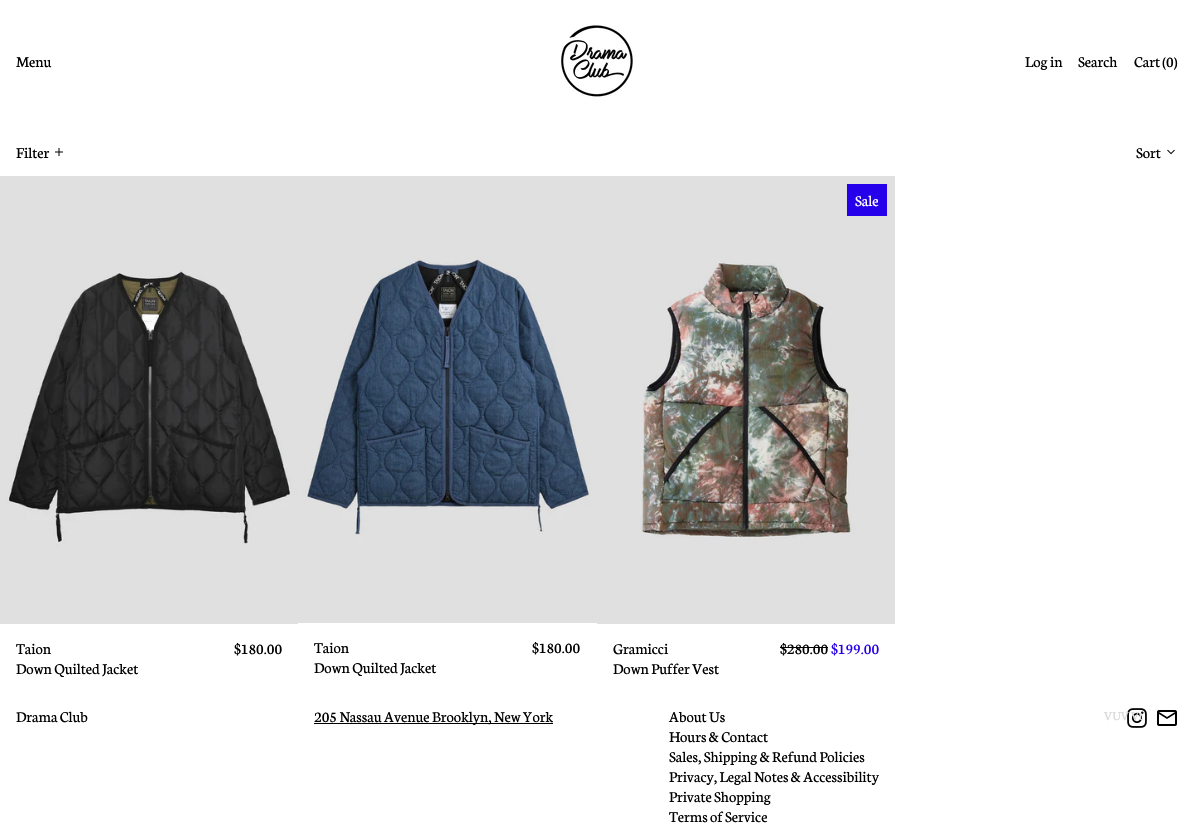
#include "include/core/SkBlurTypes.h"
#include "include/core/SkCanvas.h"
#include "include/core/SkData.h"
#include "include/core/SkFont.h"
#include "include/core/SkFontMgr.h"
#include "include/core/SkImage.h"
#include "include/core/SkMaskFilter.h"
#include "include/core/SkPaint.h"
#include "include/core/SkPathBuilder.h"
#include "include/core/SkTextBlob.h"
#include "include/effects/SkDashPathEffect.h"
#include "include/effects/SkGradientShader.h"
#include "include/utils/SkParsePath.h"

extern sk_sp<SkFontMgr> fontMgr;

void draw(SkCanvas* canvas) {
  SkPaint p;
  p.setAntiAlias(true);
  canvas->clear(SK_ColorWHITE);
  canvas->drawImageRect(SkImages::DeferredFromEncodedData(SkData::MakeFromFileName("images/1.png")), SkRect::MakeLTRB(560, 24, 635, 100), SkSamplingOptions());
  canvas->drawImageRect(SkImages::DeferredFromEncodedData(SkData::MakeFromFileName("images/2.png")), SkRect::MakeLTRB(55, 148, 63, 156), SkSamplingOptions());
  canvas->drawImageRect(SkImages::DeferredFromEncodedData(SkData::MakeFromFileName("images/3.png")), SkRect::MakeLTRB(1167, 149, 1175, 155), SkSamplingOptions());
  canvas->drawImageRect(SkImages::DeferredFromEncodedData(SkData::MakeFromFileName("images/4.png")), SkRect::MakeLTRB(0, 176, 298, 624), SkSamplingOptions());
  canvas->drawImageRect(SkImages::DeferredFromEncodedData(SkData::MakeFromFileName("images/5.png")), SkRect::MakeLTRB(298, 176, 597, 623), SkSamplingOptions());
  canvas->drawImageRect(SkImages::DeferredFromEncodedData(SkData::MakeFromFileName("images/6.png")), SkRect::MakeLTRB(597, 176, 895, 624), SkSamplingOptions());
  p.setColor(SkColorSetRGB(38, 0, 234));
  canvas->drawRect(SkRect::MakeLTRB(847, 184, 887, 216), p);
  p.setColor(SK_ColorBLACK);
  canvas->drawRect(SkRect::MakeLTRB(780, 647, 828, 648), p);
  canvas->drawRect(SkRect::MakeLTRB(314, 723, 553, 724), p);
  canvas->drawImageRect(SkImages::DeferredFromEncodedData(SkData::MakeFromFileName("images/7.png")), SkRect::MakeLTRB(1127, 708, 1147, 728), SkSamplingOptions());
  canvas->drawImageRect(SkImages::DeferredFromEncodedData(SkData::MakeFromFileName("images/8.png")), SkRect::MakeLTRB(1157, 710, 1177, 726), SkSamplingOptions());
  SkFont font1(fontMgr->matchFamilyStyle("Neuton", SkFontStyle::Normal()), 16);
  font1.setSubpixel(true);
  canvas->drawString("Menu", 16, 67, font1, p);
  canvas->drawString("Log in", 1025, 67, font1, p);
  canvas->drawString("Search", 1078, 67, font1, p);
  canvas->drawString("Cart (0)", 1134, 67, font1, p);
  canvas->drawString("Filter", 16, 158, font1, p);
  canvas->drawString("Sort", 1136, 158, font1, p);
  canvas->drawString("Taion", 16, 654, font1, p);
  canvas->drawString("Down Quilted Jacket", 16, 674, font1, p);
  canvas->drawString("$180.00", 234, 654, font1, p);
  canvas->drawString("Taion", 314, 653, font1, p);
  canvas->drawString("Down Quilted Jacket", 314, 673, font1, p);
  canvas->drawString("$180.00", 532, 653, font1, p);
  p.setColor(SK_ColorWHITE);
  canvas->drawString("Sale", 855, 206, font1, p);
  p.setColor(SK_ColorBLACK);
  canvas->drawString("Gramicci", 613, 654, font1, p);
  canvas->drawString("Down Puffer Vest", 613, 674, font1, p);
  canvas->drawString("$280.00", 780, 654, font1, p);
  p.setColor(SkColorSetRGB(38, 0, 234));
  canvas->drawString("$199.00", 831, 654, font1, p);
  p.setColor(SK_ColorBLACK);
  canvas->drawString("Drama Club", 16, 722, font1, p);
  canvas->drawString("205 Nassau Avenue Brooklyn, New York", 314, 722, font1, p);
  canvas->drawString("About Us", 669, 722, font1, p);
  canvas->drawString("Hours & Contact", 669, 742, font1, p);
  canvas->drawString("Sales, Shipping & Refund Policies", 669, 762, font1, p);
  canvas->drawString("Privacy, Legal Notes & Accessibility", 669, 782, font1, p);
  canvas->drawString("Private Shopping", 669, 802, font1, p);
  canvas->drawString("Terms of Service", 669, 822, font1, p);
  SkFont font2(fontMgr->matchFamilyStyle("Neuton", SkFontStyle::Normal()), 13);
  font2.setSubpixel(true);
  p.setColor(SkColorSetRGB(217, 217, 217));
  canvas->drawString("VUV Vt", 1104, 720, font2, p);
}
